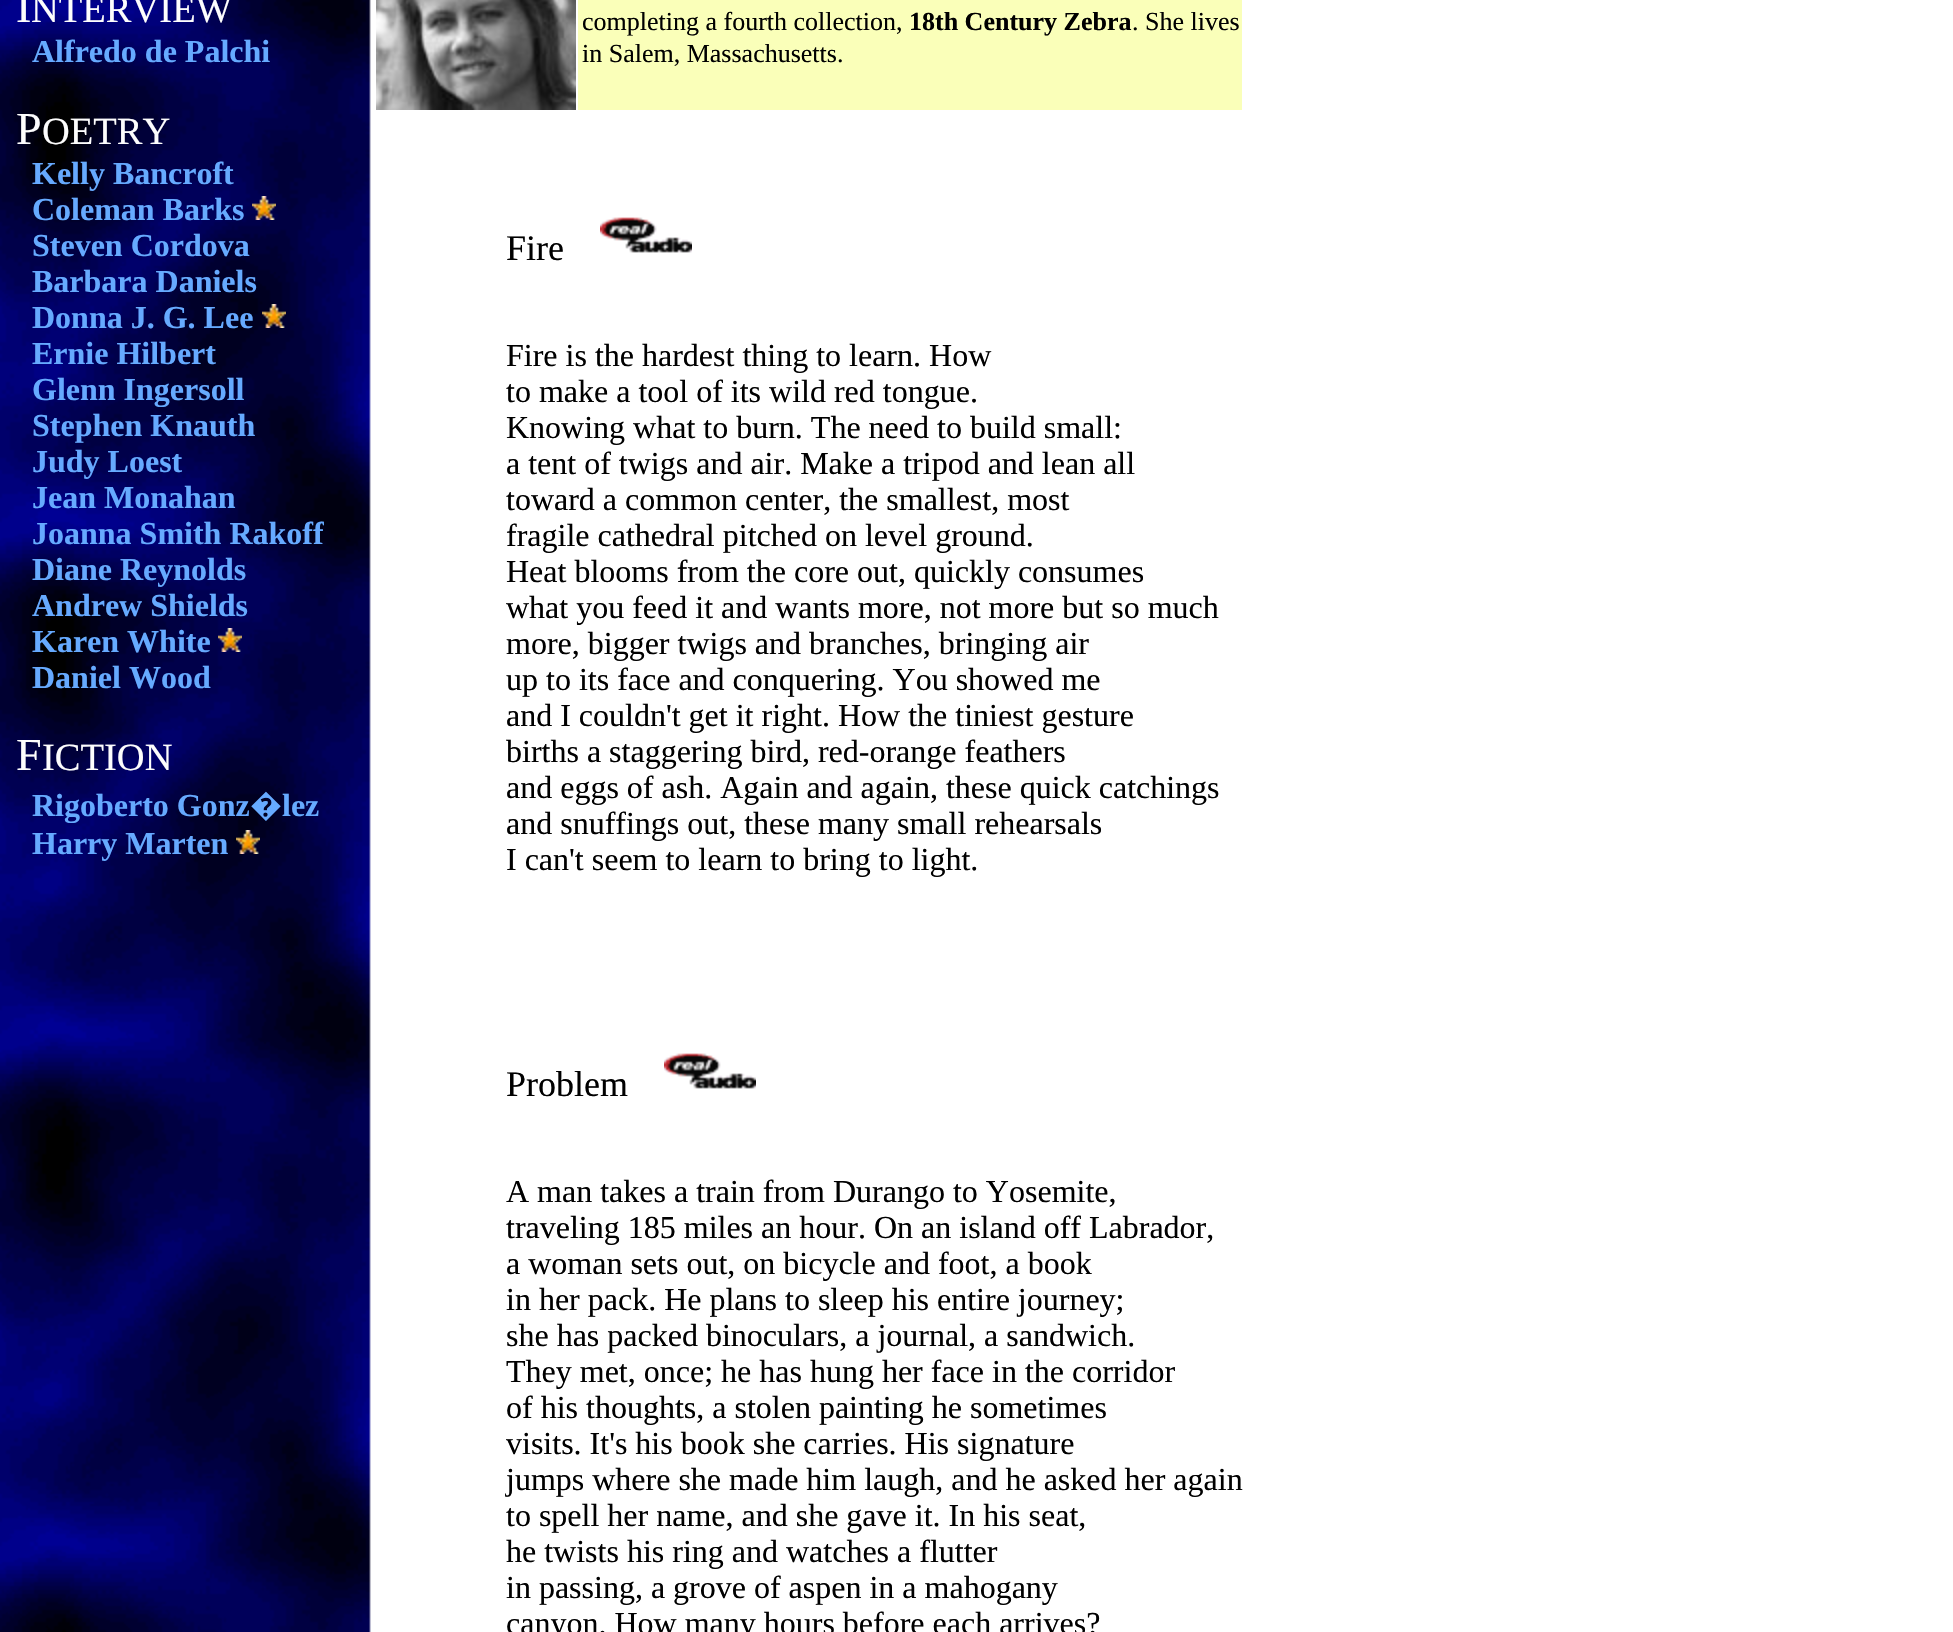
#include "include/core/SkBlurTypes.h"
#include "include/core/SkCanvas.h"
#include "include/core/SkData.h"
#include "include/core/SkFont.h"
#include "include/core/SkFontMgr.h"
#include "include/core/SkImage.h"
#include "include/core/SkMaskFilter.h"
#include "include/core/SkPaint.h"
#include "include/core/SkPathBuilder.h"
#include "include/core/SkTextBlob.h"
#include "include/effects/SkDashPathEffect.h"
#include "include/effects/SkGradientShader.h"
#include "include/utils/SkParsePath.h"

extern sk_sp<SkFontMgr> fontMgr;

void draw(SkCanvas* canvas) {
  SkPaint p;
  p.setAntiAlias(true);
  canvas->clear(SK_ColorWHITE);
  canvas->drawImageRect(SkImages::DeferredFromEncodedData(SkData::MakeFromFileName("images/1.png")), SkRect::MakeLTRB(0, 0, 371, 1632), SkSamplingOptions());
  canvas->drawImageRect(SkImages::DeferredFromEncodedData(SkData::MakeFromFileName("images/2.png")), SkRect::MakeLTRB(252, 196, 276, 220), SkSamplingOptions());
  canvas->drawImageRect(SkImages::DeferredFromEncodedData(SkData::MakeFromFileName("images/3.png")), SkRect::MakeLTRB(262, 304, 286, 328), SkSamplingOptions());
  canvas->drawImageRect(SkImages::DeferredFromEncodedData(SkData::MakeFromFileName("images/4.png")), SkRect::MakeLTRB(218, 628, 242, 652), SkSamplingOptions());
  canvas->drawImageRect(SkImages::DeferredFromEncodedData(SkData::MakeFromFileName("images/5.png")), SkRect::MakeLTRB(236, 830, 260, 854), SkSamplingOptions());
  canvas->drawImageRect(SkImages::DeferredFromEncodedData(SkData::MakeFromFileName("images/6.png")), SkRect::MakeLTRB(376, 0, 576, 110), SkSamplingOptions());
  p.setColor(SkColorSetRGB(250, 255, 185));
  canvas->drawRect(SkRect::MakeLTRB(578, 0, 1242, 110), p);
  canvas->drawImageRect(SkImages::DeferredFromEncodedData(SkData::MakeFromFileName("images/7.png")), SkRect::MakeLTRB(600, 217, 692, 253), SkSamplingOptions());
  canvas->drawImageRect(SkImages::DeferredFromEncodedData(SkData::MakeFromFileName("images/7.png")), SkRect::MakeLTRB(664, 1053, 756, 1089), SkSamplingOptions());
  SkFont font1(fontMgr->matchFamilyStyle("Liberation Serif", SkFontStyle::Normal()), 46);
  font1.setSubpixel(true);
  p.setColor(SkColorSetRGB(253, 253, 253));
  canvas->drawString("I", 16, 22, font1, p);
  SkFont font2(fontMgr->matchFamilyStyle("Liberation Serif", SkFontStyle::Normal()), 38.5f);
  font2.setSubpixel(true);
  canvas->drawString("NTERVIEW", 31, 22, font2, p);
  SkFont font3(fontMgr->matchFamilyStyle("Liberation Serif", SkFontStyle::Bold()), 32);
  font3.setSubpixel(true);
  p.setColor(SkColorSetRGB(102, 170, 255));
  canvas->drawString("Alfredo de Palchi", 32, 62, font3, p);
  p.setColor(SkColorSetRGB(253, 253, 253));
  canvas->drawString("P", 16, 144, font1, p);
  canvas->drawString("OETRY", 42, 144, font2, p);
  p.setColor(SkColorSetRGB(102, 170, 255));
  canvas->drawString("Kelly Bancroft", 32, 184, font3, p);
  canvas->drawString("Coleman Barks", 32, 220, font3, p);
  canvas->drawString("Steven Cordova", 32, 256, font3, p);
  canvas->drawString("Barbara Daniels", 32, 292, font3, p);
  canvas->drawString("Donna J. G. Lee", 32, 328, font3, p);
  canvas->drawString("Ernie Hilbert", 32, 364, font3, p);
  canvas->drawString("Glenn Ingersoll", 32, 400, font3, p);
  canvas->drawString("Stephen Knauth", 32, 436, font3, p);
  canvas->drawString("Judy Loest", 32, 472, font3, p);
  canvas->drawString("Jean Monahan", 32, 508, font3, p);
  canvas->drawString("Joanna Smith Rakoff", 32, 544, font3, p);
  canvas->drawString("Diane Reynolds", 32, 580, font3, p);
  canvas->drawString("Andrew Shields", 32, 616, font3, p);
  canvas->drawString("Karen White", 32, 652, font3, p);
  canvas->drawString("Daniel Wood", 32, 688, font3, p);
  p.setColor(SkColorSetRGB(253, 253, 253));
  canvas->drawString("F", 16, 770, font1, p);
  canvas->drawString("ICTION", 42, 770, font2, p);
  p.setColor(SkColorSetRGB(102, 170, 255));
  canvas->drawString("Rigoberto Gonz", 32, 816, font3, p);
  SkFont font4(fontMgr->matchFamilyStyle("Noto Sans", SkFontStyle::Bold()), 32);
  font4.setSubpixel(true);
  canvas->drawString("�", 250, 816, font4, p);
  canvas->drawString("lez", 282, 816, font3, p);
  canvas->drawString("Harry Marten", 32, 854, font3, p);
  SkFont font5(fontMgr->matchFamilyStyle("Liberation Serif", SkFontStyle::Normal()), 26);
  font5.setSubpixel(true);
  p.setColor(SK_ColorBLACK);
  canvas->drawString("completing a fourth collection,", 582, 30, font5, p);
  SkFont font6(fontMgr->matchFamilyStyle("Liberation Serif", SkFontStyle::Bold()), 26);
  font6.setSubpixel(true);
  canvas->drawString("18th Century Zebra", 909, 30, font6, p);
  canvas->drawString(". She lives", 1132, 30, font5, p);
  canvas->drawString("in Salem, Massachusetts.", 582, 62, font5, p);
  SkFont font7(fontMgr->matchFamilyStyle("Liberation Serif", SkFontStyle::Normal()), 36);
  font7.setSubpixel(true);
  canvas->drawString("Fire", 506, 260, font7, p);
  SkFont font8(fontMgr->matchFamilyStyle("Liberation Serif", SkFontStyle::Normal()), 32);
  font8.setSubpixel(true);
  canvas->drawString("Fire is the hardest thing to learn. How", 506, 366, font8, p);
  canvas->drawString("to make a tool of its wild red tongue.", 506, 402, font8, p);
  canvas->drawString("Knowing what to burn. The need to build small:", 506, 438, font8, p);
  canvas->drawString("a tent of twigs and air. Make a tripod and lean all", 506, 474, font8, p);
  canvas->drawString("toward a common center, the smallest, most", 506, 510, font8, p);
  canvas->drawString("fragile cathedral pitched on level ground.", 506, 546, font8, p);
  canvas->drawString("Heat blooms from the core out, quickly consumes", 506, 582, font8, p);
  canvas->drawString("what you feed it and wants more, not more but so much", 506, 618, font8, p);
  canvas->drawString("more, bigger twigs and branches, bringing air", 506, 654, font8, p);
  canvas->drawString("up to its face and conquering. You showed me", 506, 690, font8, p);
  canvas->drawString("and I couldn't get it right. How the tiniest gesture", 506, 726, font8, p);
  canvas->drawString("births a staggering bird, red-orange feathers", 506, 762, font8, p);
  canvas->drawString("and eggs of ash. Again and again, these quick catchings", 506, 798, font8, p);
  canvas->drawString("and snuffings out, these many small rehearsals", 506, 834, font8, p);
  canvas->drawString("I can't seem to learn to bring to light.", 506, 870, font8, p);
  canvas->drawString("Problem", 506, 1096, font7, p);
  canvas->drawString("A man takes a train from Durango to Yosemite,", 506, 1202, font8, p);
  canvas->drawString("traveling 185 miles an hour. On an island off Labrador,", 506, 1238, font8, p);
  canvas->drawString("a woman sets out, on bicycle and foot, a book", 506, 1274, font8, p);
  canvas->drawString("in her pack. He plans to sleep his entire journey;", 506, 1310, font8, p);
  canvas->drawString("she has packed binoculars, a journal, a sandwich.", 506, 1346, font8, p);
  canvas->drawString("They met, once; he has hung her face in the corridor", 506, 1382, font8, p);
  canvas->drawString("of his thoughts, a stolen painting he sometimes", 506, 1418, font8, p);
  canvas->drawString("visits. It's his book she carries. His signature", 506, 1454, font8, p);
  canvas->drawString("jumps where she made him laugh, and he asked her again", 506, 1490, font8, p);
  canvas->drawString("to spell her name, and she gave it. In his seat,", 506, 1526, font8, p);
  canvas->drawString("he twists his ring and watches a flutter", 506, 1562, font8, p);
  canvas->drawString("in passing, a grove of aspen in a mahogany", 506, 1598, font8, p);
  canvas->drawString("canyon. How many hours before each arrives?", 506, 1634, font8, p);
}
